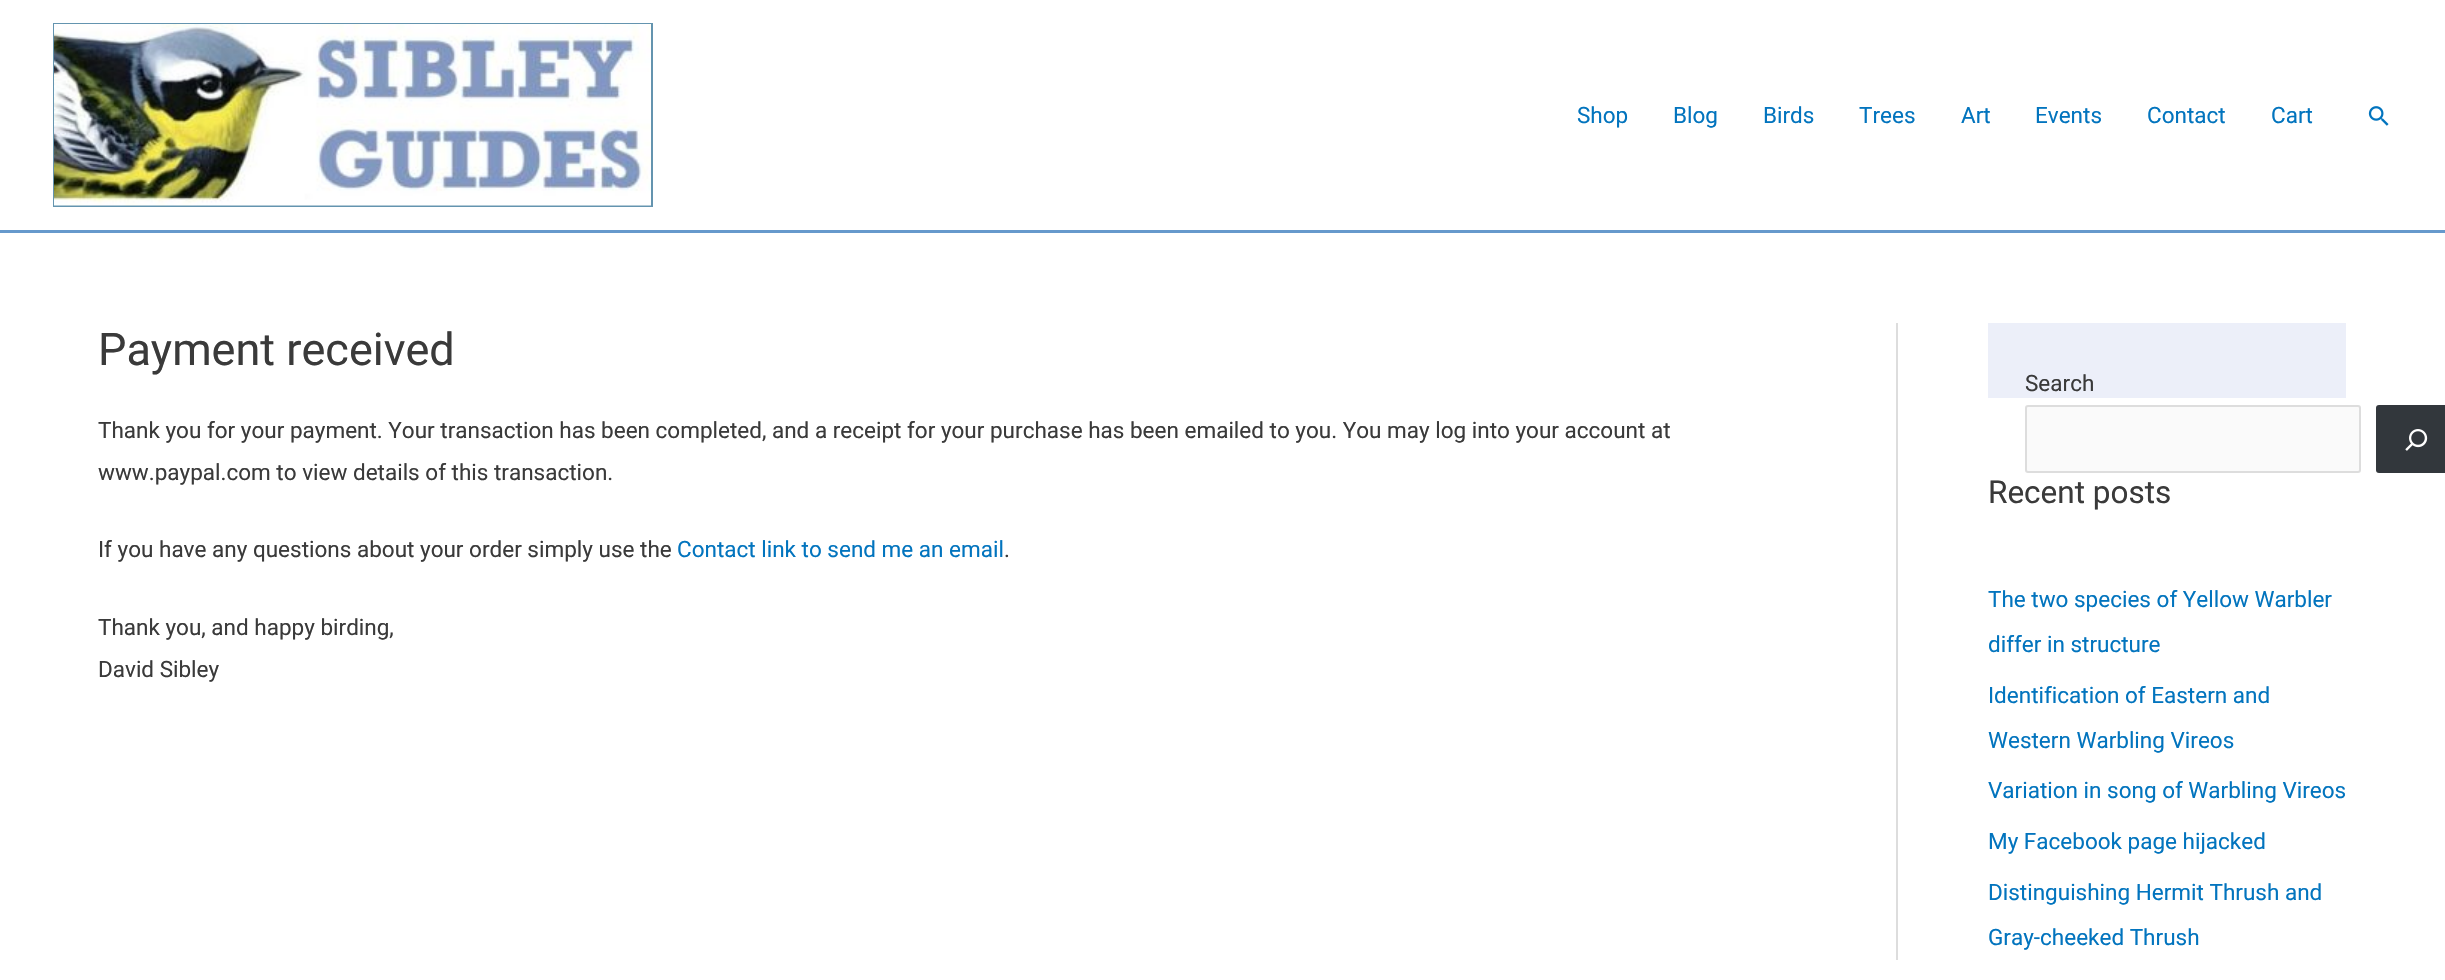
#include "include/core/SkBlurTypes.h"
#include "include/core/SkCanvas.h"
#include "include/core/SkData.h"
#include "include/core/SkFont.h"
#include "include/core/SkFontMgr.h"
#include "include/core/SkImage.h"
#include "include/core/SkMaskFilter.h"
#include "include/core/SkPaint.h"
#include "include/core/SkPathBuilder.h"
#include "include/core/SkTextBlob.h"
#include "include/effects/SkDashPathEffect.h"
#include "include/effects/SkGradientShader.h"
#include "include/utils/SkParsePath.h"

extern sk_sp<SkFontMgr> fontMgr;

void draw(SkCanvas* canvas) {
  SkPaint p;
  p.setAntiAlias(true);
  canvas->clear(SK_ColorWHITE);
  p.setColor(SkColorSetRGB(102, 153, 204));
  canvas->drawRect(SkRect::MakeLTRB(0, 230, 2445, 233), p);
  p.setStyle(SkPaint::kStroke_Style);
  p.setStrokeWidth(2);
  p.setColor(SkColorSetRGB(100, 148, 175));
  canvas->drawRect(SkRect::MakeLTRB(54, 24, 652, 206), p);
  canvas->drawImageRect(SkImages::DeferredFromEncodedData(SkData::MakeFromFileName("images/1.png")), SkRect::MakeLTRB(54, 24, 651, 206), SkSamplingOptions());
  canvas->drawImageRect(SkImages::DeferredFromEncodedData(SkData::MakeFromFileName("images/2.png")), SkRect::MakeLTRB(2368, 106, 2389, 126), SkSamplingOptions());
  p.setStyle(SkPaint::kFill_Style);
  p.setColor(SkColorSetRGB(221, 221, 221));
  canvas->drawRect(SkRect::MakeLTRB(1896, 323, 1898, 960), p);
  p.setColor(SkColorSetRGB(236, 239, 249));
  canvas->drawRect(SkRect::MakeLTRB(1988, 323, 2346, 398), p);
  p.setColor(SkColorSetRGB(250, 250, 250));
  canvas->drawRoundRect(SkRect::MakeLTRB(2026, 406, 2360, 472), 2, 2, p);
  p.setStyle(SkPaint::kStroke_Style);
  p.setColor(SkColorSetRGB(221, 221, 221));
  canvas->drawRoundRect(SkRect::MakeLTRB(2026, 406, 2360, 472), 2, 2, p);
  p.setStyle(SkPaint::kFill_Style);
  p.setColor(SkColorSetRGB(50, 55, 60));
  canvas->drawRoundRect(SkRect::MakeLTRB(2376, 405, 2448, 473), 3, 3, p);
  canvas->drawImageRect(SkImages::DeferredFromEncodedData(SkData::MakeFromFileName("images/3.png")), SkRect::MakeLTRB(2405, 429, 2428, 451), SkSamplingOptions());
  SkFont font1(fontMgr->matchFamilyStyle("Roboto", SkFontStyle::Normal()), 22.5f);
  font1.setSubpixel(true);
  p.setColor(SkColorSetRGB(2, 116, 190));
  canvas->drawString("Shop", 1577, 123, font1, p);
  canvas->drawString("Blog", 1673, 123, font1, p);
  canvas->drawString("Birds", 1763, 123, font1, p);
  canvas->drawString("Trees", 1859, 123, font1, p);
  canvas->drawString("Art", 1961, 123, font1, p);
  canvas->drawString("Events", 2035, 123, font1, p);
  canvas->drawString("Contact", 2147, 123, font1, p);
  canvas->drawString("Cart", 2271, 123, font1, p);
  SkFont font2(fontMgr->matchFamilyStyle("Roboto", SkFontStyle::Normal()), 45);
  font2.setSubpixel(true);
  p.setColor(SkColorSetRGB(58, 58, 58));
  canvas->drawString("Payment received", 98, 365, font2, p);
  canvas->drawString("Thank you for your payment. Your transaction has been completed, and a receipt for your purchase has been emailed to you. You may log into your account at", 98, 438, font1, p);
  canvas->drawString("www.paypal.com to view details of this transaction.", 98, 480, font1, p);
  canvas->drawString("If you have any questions about your order simply use the", 98, 557, font1, p);
  p.setColor(SkColorSetRGB(2, 116, 190));
  canvas->drawString("Contact link to send me an email", 677, 557, font1, p);
  p.setColor(SkColorSetRGB(58, 58, 58));
  canvas->drawString(".", 1004, 557, font1, p);
  canvas->drawString("Thank you, and happy birding,", 98, 635, font1, p);
  canvas->drawString("David Sibley", 98, 677, font1, p);
  canvas->drawString("Search", 2025, 391, font1, p);
  SkFont font3(fontMgr->matchFamilyStyle("Roboto", SkFontStyle::Normal()), 31.5f);
  font3.setSubpixel(true);
  canvas->drawString("Recent posts", 1988, 503, font3, p);
  p.setColor(SkColorSetRGB(2, 116, 190));
  canvas->drawString("The two species of Yellow Warbler", 1988, 607, font1, p);
  canvas->drawString("differ in structure", 1988, 652, font1, p);
  canvas->drawString("Identification of Eastern and", 1988, 703, font1, p);
  canvas->drawString("Western Warbling Vireos", 1988, 748, font1, p);
  canvas->drawString("Variation in song of Warbling Vireos", 1988, 798, font1, p);
  canvas->drawString("My Facebook page hijacked", 1988, 849, font1, p);
  canvas->drawString("Distinguishing Hermit Thrush and", 1988, 900, font1, p);
  canvas->drawString("Gray-cheeked Thrush", 1988, 945, font1, p);
}
